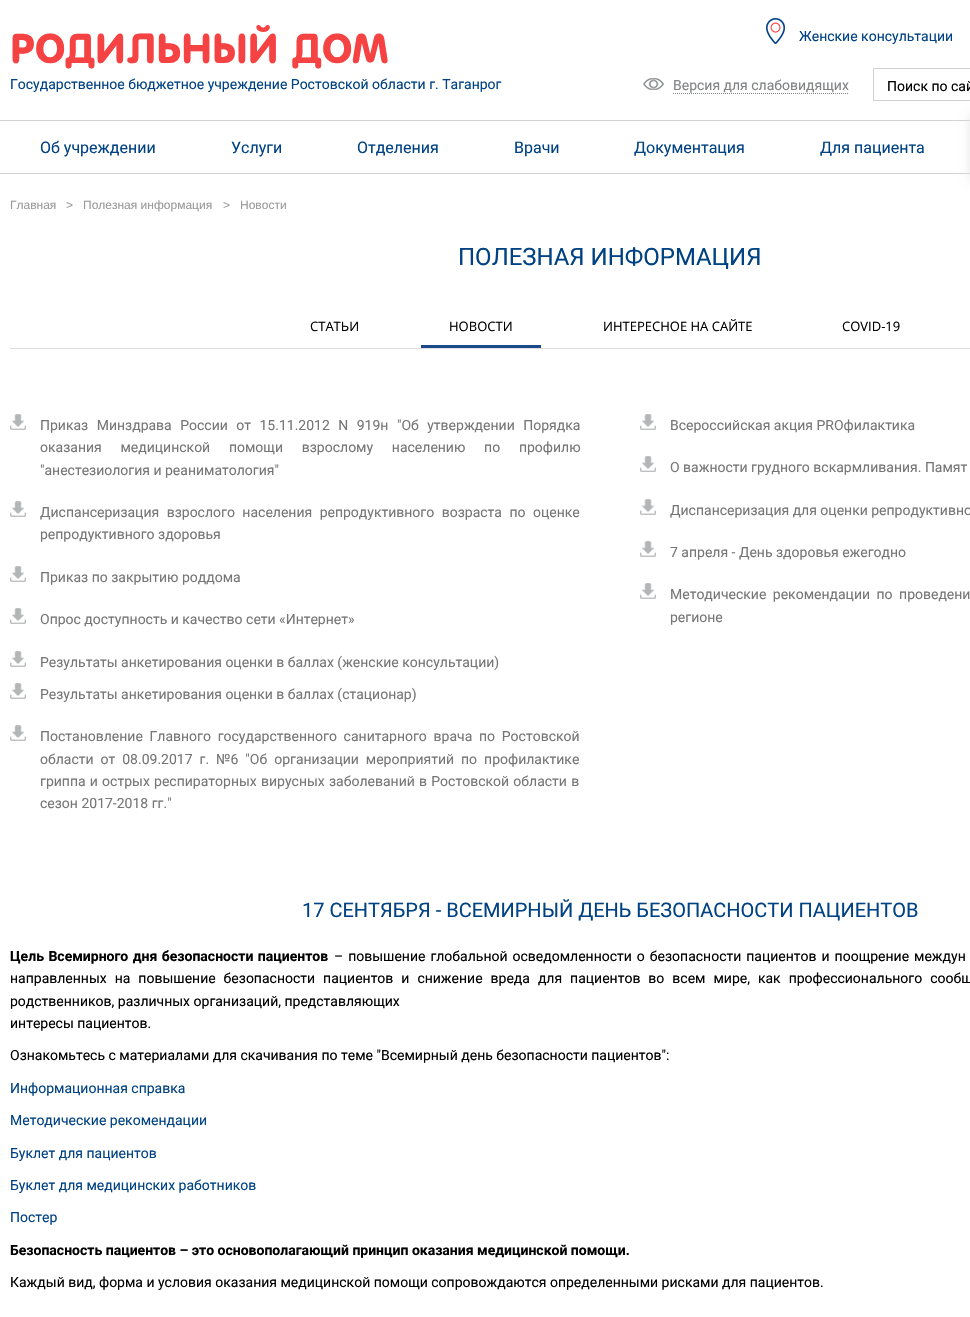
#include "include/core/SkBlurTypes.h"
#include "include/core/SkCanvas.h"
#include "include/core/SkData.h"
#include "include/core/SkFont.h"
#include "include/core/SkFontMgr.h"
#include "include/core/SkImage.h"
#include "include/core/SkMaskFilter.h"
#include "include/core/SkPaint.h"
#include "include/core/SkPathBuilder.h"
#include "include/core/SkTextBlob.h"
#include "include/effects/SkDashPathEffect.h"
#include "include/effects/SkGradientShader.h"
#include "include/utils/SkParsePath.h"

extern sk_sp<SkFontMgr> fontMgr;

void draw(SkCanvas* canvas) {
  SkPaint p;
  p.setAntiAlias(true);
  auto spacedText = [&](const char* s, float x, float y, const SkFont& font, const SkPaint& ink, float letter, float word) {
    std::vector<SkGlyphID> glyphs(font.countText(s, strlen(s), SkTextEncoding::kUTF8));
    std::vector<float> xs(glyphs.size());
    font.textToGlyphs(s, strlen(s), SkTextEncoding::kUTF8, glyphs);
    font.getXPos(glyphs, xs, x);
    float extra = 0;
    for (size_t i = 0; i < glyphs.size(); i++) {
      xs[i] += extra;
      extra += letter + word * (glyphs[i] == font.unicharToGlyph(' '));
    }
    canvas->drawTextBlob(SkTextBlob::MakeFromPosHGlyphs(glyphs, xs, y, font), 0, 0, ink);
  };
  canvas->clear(SK_ColorWHITE);
  p.setColor(SkColorSetRGB(211, 210, 210));
  canvas->drawRect(SkRect::MakeLTRB(0, 120, 970, 121), p);
  canvas->drawImageRect(SkImages::DeferredFromEncodedData(SkData::MakeFromFileName("images/1.png")), SkRect::MakeLTRB(766, 18, 785, 44), SkSamplingOptions());
  canvas->drawImageRect(SkImages::DeferredFromEncodedData(SkData::MakeFromFileName("images/2.png")), SkRect::MakeLTRB(643, 78, 664, 90), SkSamplingOptions());
  p.setStyle(SkPaint::kStroke_Style);
  p.setStrokeWidth(1);
  p.setColor(SkColorSetRGB(129, 131, 133));
  p.setPathEffect(SkDashPathEffect::Make({{1, 1}}, 0));
  canvas->drawPath(SkPathBuilder().moveTo(673, 93.5f).lineTo(849, 93.5f).detach(), p);
  p.setPathEffect(nullptr);
  p.setColor(SkColorSetRGB(211, 210, 210));
  canvas->drawRect(SkRect::MakeLTRB(873.5f, 68.5f, 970.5f, 100.5f), p);
  p.setStyle(SkPaint::kFill_Style);
  canvas->drawRect(SkRect::MakeLTRB(0, 173, 970, 174), p);
  p.setColor(SkColorSetRGB(225, 225, 225));
  p.setMaskFilter(SkMaskFilter::MakeBlur(kNormal_SkBlurStyle, 6));
  canvas->drawRect(SkRect::MakeLTRB(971, 115, 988, 179), p);
  p.setMaskFilter(nullptr);
  p.setColor(SkColorSetRGB(221, 222, 223));
  canvas->drawRect(SkRect::MakeLTRB(10, 348, 970, 349), p);
  p.setColor(SkColorSetRGB(26, 75, 136));
  canvas->drawRect(SkRect::MakeLTRB(421, 345, 541, 348), p);
  canvas->drawImageRect(SkImages::DeferredFromEncodedData(SkData::MakeFromFileName("images/3.png")), SkRect::MakeLTRB(10, 414, 26, 430), SkSamplingOptions());
  canvas->drawImageRect(SkImages::DeferredFromEncodedData(SkData::MakeFromFileName("images/3.png")), SkRect::MakeLTRB(10, 501, 26, 517), SkSamplingOptions());
  canvas->drawImageRect(SkImages::DeferredFromEncodedData(SkData::MakeFromFileName("images/3.png")), SkRect::MakeLTRB(10, 566, 26, 582), SkSamplingOptions());
  canvas->drawImageRect(SkImages::DeferredFromEncodedData(SkData::MakeFromFileName("images/3.png")), SkRect::MakeLTRB(10, 608, 26, 624), SkSamplingOptions());
  canvas->drawImageRect(SkImages::DeferredFromEncodedData(SkData::MakeFromFileName("images/3.png")), SkRect::MakeLTRB(10, 651, 26, 667), SkSamplingOptions());
  canvas->drawImageRect(SkImages::DeferredFromEncodedData(SkData::MakeFromFileName("images/3.png")), SkRect::MakeLTRB(10, 683, 26, 699), SkSamplingOptions());
  canvas->drawImageRect(SkImages::DeferredFromEncodedData(SkData::MakeFromFileName("images/3.png")), SkRect::MakeLTRB(10, 725, 26, 741), SkSamplingOptions());
  canvas->drawImageRect(SkImages::DeferredFromEncodedData(SkData::MakeFromFileName("images/3.png")), SkRect::MakeLTRB(640, 414, 656, 430), SkSamplingOptions());
  canvas->drawImageRect(SkImages::DeferredFromEncodedData(SkData::MakeFromFileName("images/3.png")), SkRect::MakeLTRB(640, 456, 656, 472), SkSamplingOptions());
  canvas->drawImageRect(SkImages::DeferredFromEncodedData(SkData::MakeFromFileName("images/3.png")), SkRect::MakeLTRB(640, 499, 656, 515), SkSamplingOptions());
  canvas->drawImageRect(SkImages::DeferredFromEncodedData(SkData::MakeFromFileName("images/3.png")), SkRect::MakeLTRB(640, 541, 656, 557), SkSamplingOptions());
  canvas->drawImageRect(SkImages::DeferredFromEncodedData(SkData::MakeFromFileName("images/3.png")), SkRect::MakeLTRB(640, 583, 656, 599), SkSamplingOptions());
  SkFont font1(fontMgr->matchFamilyStyle("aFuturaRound", SkFontStyle::Bold()), 40);
  font1.setSubpixel(true);
  p.setColor(SkColorSetRGB(245, 67, 67));
  canvas->drawString("РОДИЛЬНЫЙ ДОМ", 10, 63, font1, p);
  SkFont font2(fontMgr->matchFamilyStyle("Roboto", SkFontStyle::Normal()), 14);
  font2.setSubpixel(true);
  p.setColor(SkColorSetRGB(0, 66, 131));
  canvas->drawString("Государственное бюджетное учреждение Ростовской области г. Таганрог", 10, 89, font2, p);
  canvas->drawString("Женские консультации", 799, 41, font2, p);
  p.setColor(SkColorSetRGB(129, 131, 133));
  canvas->drawString("Версия для слабовидящих", 673, 90, font2, p);
  p.setColor(SK_ColorBLACK);
  canvas->drawString("Поиск по сай", 887, 91, font2, p);
  SkFont font3(fontMgr->matchFamilyStyle("Roboto", SkFontStyle::Normal()), 16);
  font3.setSubpixel(true);
  p.setColor(SkColorSetRGB(0, 66, 131));
  canvas->drawString("Об учреждении", 40, 153, font3, p);
  canvas->drawString("Услуги", 231, 153, font3, p);
  canvas->drawString("Отделения", 357, 153, font3, p);
  canvas->drawString("Врачи", 514, 153, font3, p);
  canvas->drawString("Документация", 634, 153, font3, p);
  canvas->drawString("Для пациента", 820, 153, font3, p);
  SkFont font4(fontMgr->matchFamilyStyle("Liberation Sans", SkFontStyle::Normal()), 12);
  font4.setSubpixel(true);
  p.setColor(SkColorSetRGB(153, 153, 153));
  canvas->drawString("Главная", 10, 209, font4, p);
  canvas->drawString(">", 66, 209, font4, p);
  canvas->drawString("Полезная информация", 83, 209, font4, p);
  canvas->drawString(">   Новости", 223, 209, font4, p);
  SkFont font5(fontMgr->matchFamilyStyle("Roboto", SkFontStyle::Normal()), 24);
  font5.setSubpixel(true);
  p.setColor(SkColorSetRGB(0, 66, 131));
  canvas->drawString("ПОЛЕЗНАЯ ИНФОРМАЦИЯ", 458, 265, font5, p);
  SkFont font6(fontMgr->matchFamilyStyle("Open Sans", SkFontStyle::Normal()), 13);
  font6.setSubpixel(true);
  p.setColor(SK_ColorBLACK);
  canvas->drawString("СТАТЬИ", 310, 331, font6, p);
  canvas->drawString("НОВОСТИ", 449, 331, font6, p);
  canvas->drawString("ИНТЕРЕСНОЕ НА САЙТЕ", 603, 331, font6, p);
  canvas->drawString("COVID-19", 842, 331, font6, p);
  p.setColor(SkColorSetRGB(118, 118, 118));
  spacedText("Приказ Минздрава России от 15.11.2012 N 919н \"Об утверждении Порядка", 40, 430, font2, p, 0, 5);
  spacedText("оказания медицинской помощи взрослому населению по профилю", 40, 452, font2, p, 0, 15.25f);
  canvas->drawString("\"анестезиология и реаниматология\"", 40, 475, font2, p);
  spacedText("Диспансеризация взрослого населения репродуктивного возраста по оценке", 40, 517, font2, p, 0, 4);
  canvas->drawString("репродуктивного здоровья", 40, 539, font2, p);
  canvas->drawString("Приказ по закрытию роддома", 40, 582, font2, p);
  canvas->drawString("Опрос доступность и качество сети «Интернет»", 40, 624, font2, p);
  canvas->drawString("Результаты анкетирования оценки в баллах (женские консультации)", 40, 667, font2, p);
  canvas->drawString("Результаты анкетирования оценки в баллах (стационар)", 40, 699, font2, p);
  spacedText("Постановление Главного государственного санитарного врача по Ростовской", 40, 741, font2, p, 0, 3.25f);
  spacedText("области от 08.09.2017 г. №6 \"Об организации мероприятий по профилактике", 40, 764, font2, p, 0, 3.5f);
  spacedText("гриппа и острых респираторных вирусных заболеваний в Ростовской области в", 40, 786, font2, p, 0, 0.75f);
  canvas->drawString("сезон 2017-2018 гг.\"", 40, 808, font2, p);
  canvas->drawString("Всероссийская акция PROфилактика", 670, 430, font2, p);
  canvas->drawString("О важности грудного вскармливания. Памят", 670, 472, font2, p);
  canvas->drawString("Диспансеризация для оценки репродуктивно", 670, 515, font2, p);
  canvas->drawString("7 апреля - День здоровья ежегодно", 670, 557, font2, p);
  spacedText("Методические рекомендации по проведени", 670, 599, font2, p, 0, 3);
  canvas->drawString("регионе", 670, 622, font2, p);
  SkFont font7(fontMgr->matchFamilyStyle("Roboto", SkFontStyle::Normal()), 20);
  font7.setSubpixel(true);
  p.setColor(SkColorSetRGB(0, 66, 131));
  canvas->drawString("17 СЕНТЯБРЯ - ВСЕМИРНЫЙ ДЕНЬ БЕЗОПАСНОСТИ ПАЦИЕНТОВ", 302, 917, font7, p);
  SkFont font8(fontMgr->matchFamilyStyle("Roboto", SkFontStyle::Bold()), 14);
  font8.setSubpixel(true);
  p.setColor(SK_ColorBLACK);
  spacedText("Цель Всемирного дня безопасности пациентов", 10, 961, font8, p, 0, 1);
  spacedText("– повышение глобальной осведомленности о безопасности пациентов и поощрение междун", 334, 961, font2, p, 0, 1.5f);
  spacedText("направленных на повышение безопасности пациентов и снижение вреда для пациентов во всем мире, как профессионального сообщ", 10, 983, font2, p, 0, 4.5f);
  canvas->drawString("родственников, различных организаций, представляющих", 10, 1006, font2, p);
  canvas->drawString("интересы пациентов.", 10, 1028, font2, p);
  canvas->drawString("Ознакомьтесь с материалами для скачивания по теме \"Всемирный день безопасности пациентов\":", 10, 1060, font2, p);
  p.setColor(SkColorSetRGB(0, 66, 131));
  canvas->drawString("Информационная справка", 10, 1093, font2, p);
  canvas->drawString("Методические рекомендации", 10, 1125, font2, p);
  canvas->drawString("Буклет для пациентов", 10, 1158, font2, p);
  canvas->drawString("Буклет для медицинских работников", 10, 1190, font2, p);
  canvas->drawString("Постер", 10, 1222, font2, p);
  p.setColor(SK_ColorBLACK);
  canvas->drawString("Безопасность пациентов – это основополагающий принцип оказания медицинской помощи.", 10, 1255, font8, p);
  canvas->drawString("Каждый вид, форма и условия оказания медицинской помощи сопровождаются определенными рисками для пациентов.", 10, 1287, font2, p);
}
